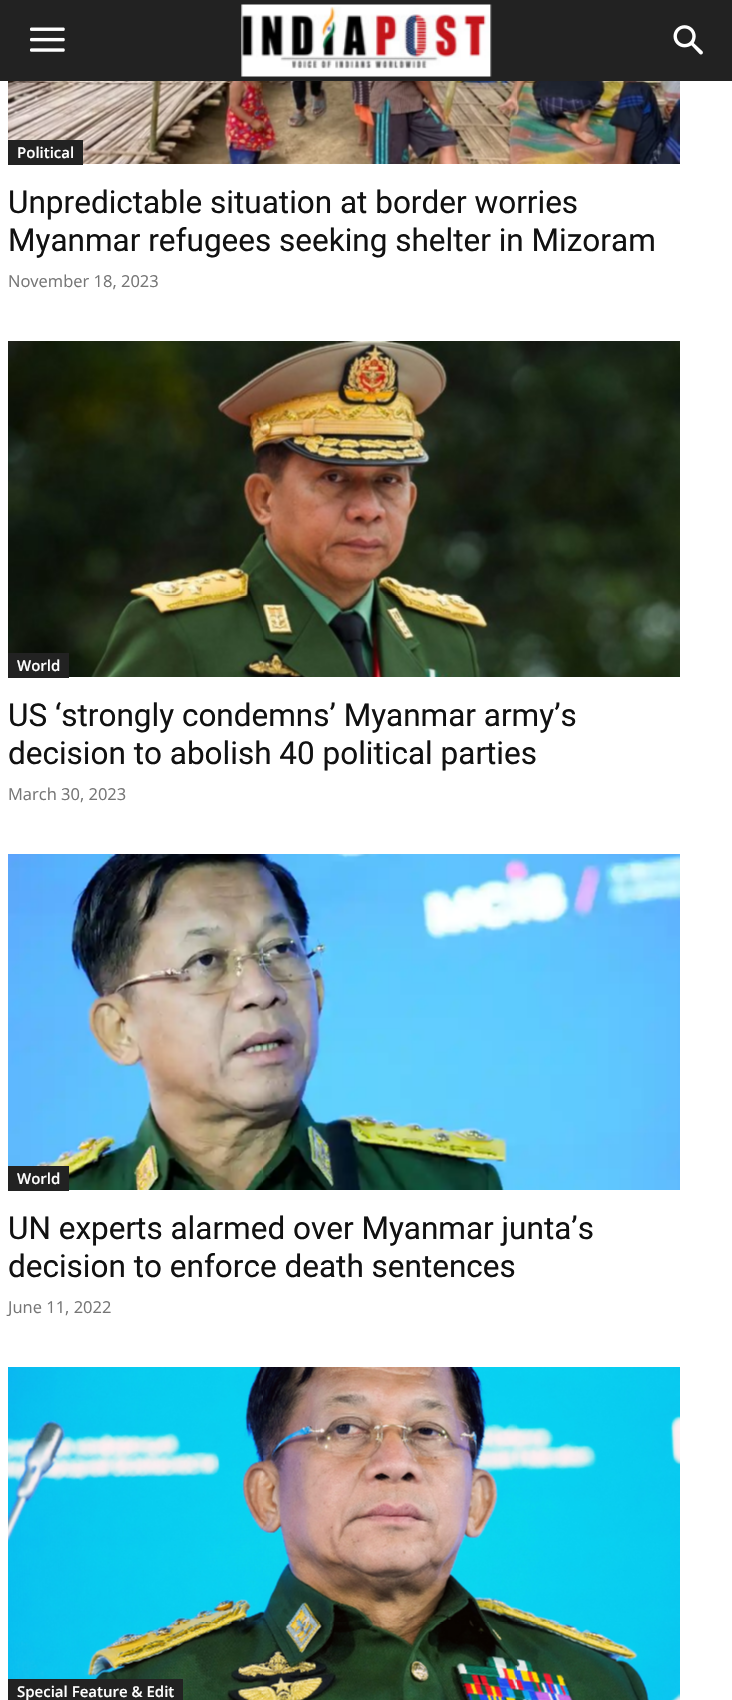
#include "include/core/SkBlurTypes.h"
#include "include/core/SkCanvas.h"
#include "include/core/SkData.h"
#include "include/core/SkFont.h"
#include "include/core/SkFontMgr.h"
#include "include/core/SkImage.h"
#include "include/core/SkMaskFilter.h"
#include "include/core/SkPaint.h"
#include "include/core/SkPathBuilder.h"
#include "include/core/SkTextBlob.h"
#include "include/effects/SkDashPathEffect.h"
#include "include/effects/SkGradientShader.h"
#include "include/utils/SkParsePath.h"

extern sk_sp<SkFontMgr> fontMgr;

void draw(SkCanvas* canvas) {
  SkPaint p;
  p.setAntiAlias(true);
  canvas->clear(SK_ColorWHITE);
  p.setColor(SkColorSetRGB(34, 34, 34));
  canvas->drawRect(SkRect::MakeLTRB(0, 0, 732, 81), p);
  canvas->drawImageRect(SkImages::DeferredFromEncodedData(SkData::MakeFromFileName("images/1.png")), SkRect::MakeLTRB(30, 27, 65, 52), SkSamplingOptions());
  canvas->drawImageRect(SkImages::DeferredFromEncodedData(SkData::MakeFromFileName("images/2.png")), SkRect::MakeLTRB(241, 4, 492, 77), SkSamplingOptions());
  canvas->drawImageRect(SkImages::DeferredFromEncodedData(SkData::MakeFromFileName("images/3.png")), SkRect::MakeLTRB(673, 25, 703, 55), SkSamplingOptions());
  canvas->drawImageRect(SkImages::DeferredFromEncodedData(SkData::MakeFromFileName("images/4.png")), SkRect::MakeLTRB(8, 81, 680, 164), SkSamplingOptions());
  canvas->drawRect(SkRect::MakeLTRB(8, 140, 83, 165), p);
  canvas->drawImageRect(SkImages::DeferredFromEncodedData(SkData::MakeFromFileName("images/5.png")), SkRect::MakeLTRB(8, 341, 680, 677), SkSamplingOptions());
  canvas->drawRect(SkRect::MakeLTRB(8, 653, 69, 678), p);
  canvas->drawImageRect(SkImages::DeferredFromEncodedData(SkData::MakeFromFileName("images/6.png")), SkRect::MakeLTRB(8, 854, 680, 1190), SkSamplingOptions());
  canvas->drawRect(SkRect::MakeLTRB(8, 1166, 69, 1191), p);
  canvas->drawImageRect(SkImages::DeferredFromEncodedData(SkData::MakeFromFileName("images/7.png")), SkRect::MakeLTRB(8, 1367, 680, 1700), SkSamplingOptions());
  canvas->drawRect(SkRect::MakeLTRB(8, 1679, 183, 1700), p);
  SkFont font1(fontMgr->matchFamilyStyle("Open Sans", SkFontStyle(600, SkFontStyle::kNormal_Width, SkFontStyle::kUpright_Slant)), 15);
  font1.setSubpixel(true);
  p.setColor(SK_ColorWHITE);
  canvas->drawString("Political", 17, 158, font1, p);
  SkFont font2(fontMgr->matchFamilyStyle("Roboto", SkFontStyle::Normal()), 31.5f);
  font2.setSubpixel(true);
  p.setColor(SkColorSetRGB(17, 17, 17));
  canvas->drawString("Unpredictable situation at border worries", 8, 213, font2, p);
  canvas->drawString("Myanmar refugees seeking shelter in Mizoram", 8, 251, font2, p);
  SkFont font3(fontMgr->matchFamilyStyle("Open Sans", SkFontStyle::Normal()), 16.5f);
  font3.setSubpixel(true);
  p.setColor(SkColorSetRGB(118, 118, 118));
  canvas->drawString("November 18, 2023", 8, 287, font3, p);
  p.setColor(SK_ColorWHITE);
  canvas->drawString("World", 17, 671, font1, p);
  p.setColor(SkColorSetRGB(17, 17, 17));
  canvas->drawString("US ‘strongly condemns’ Myanmar army’s", 8, 726, font2, p);
  canvas->drawString("decision to abolish 40 political parties", 8, 764, font2, p);
  p.setColor(SkColorSetRGB(118, 118, 118));
  canvas->drawString("March 30, 2023", 8, 800, font3, p);
  p.setColor(SK_ColorWHITE);
  canvas->drawString("World", 17, 1184, font1, p);
  p.setColor(SkColorSetRGB(17, 17, 17));
  canvas->drawString("UN experts alarmed over Myanmar junta’s", 8, 1239, font2, p);
  canvas->drawString("decision to enforce death sentences", 8, 1277, font2, p);
  p.setColor(SkColorSetRGB(118, 118, 118));
  canvas->drawString("June 11, 2022", 8, 1313, font3, p);
  p.setColor(SK_ColorWHITE);
  canvas->drawString("Special Feature & Edit", 17, 1697, font1, p);
}
